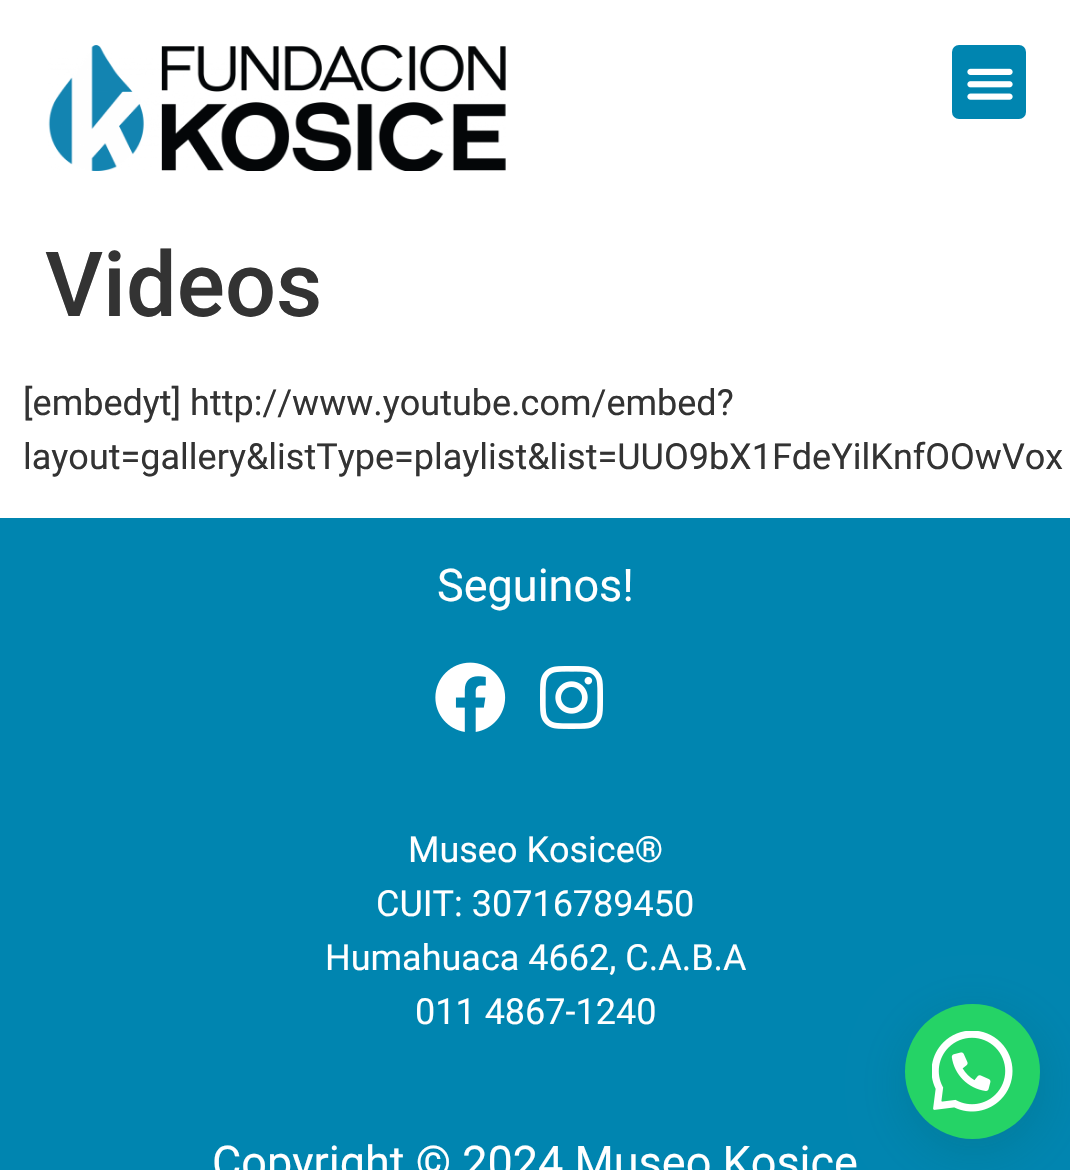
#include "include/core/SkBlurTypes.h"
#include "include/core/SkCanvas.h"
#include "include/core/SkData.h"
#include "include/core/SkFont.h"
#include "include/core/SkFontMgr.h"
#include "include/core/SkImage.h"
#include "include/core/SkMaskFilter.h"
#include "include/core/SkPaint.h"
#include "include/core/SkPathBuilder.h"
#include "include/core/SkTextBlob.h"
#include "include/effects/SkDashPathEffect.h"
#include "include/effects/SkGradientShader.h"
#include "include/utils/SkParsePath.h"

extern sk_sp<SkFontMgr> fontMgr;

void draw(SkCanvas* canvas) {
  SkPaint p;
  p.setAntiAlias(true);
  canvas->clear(SK_ColorWHITE);
  canvas->drawImageRect(SkImages::DeferredFromEncodedData(SkData::MakeFromFileName("images/1.png")), SkRect::MakeLTRB(48, 45, 506, 171), SkSamplingOptions());
  p.setColor(SkColorSetRGB(0, 133, 176));
  canvas->drawRoundRect(SkRect::MakeLTRB(952, 45, 1026, 119), 7, 7, p);
  canvas->drawImageRect(SkImages::DeferredFromEncodedData(SkData::MakeFromFileName("images/2.png")), SkRect::MakeLTRB(967, 68, 1013, 100), SkSamplingOptions());
  canvas->drawRect(SkRect::MakeLTRB(0, 518, 1070, 1170), p);
  canvas->drawImageRect(SkImages::DeferredFromEncodedData(SkData::MakeFromFileName("images/3.png")), SkRect::MakeLTRB(435, 662, 506, 732), SkSamplingOptions());
  canvas->drawImageRect(SkImages::DeferredFromEncodedData(SkData::MakeFromFileName("images/4.png")), SkRect::MakeLTRB(540, 666, 603, 729), SkSamplingOptions());
  p.setColor(SkColorSetARGB(61, 7, 94, 84));
  p.setMaskFilter(SkMaskFilter::MakeBlur(kNormal_SkBlurStyle, 27));
  canvas->drawRoundRect(SkRect::MakeLTRB(907, 1017, 1042, 1152), 67.5f, 67.5f, p);
  p.setMaskFilter(nullptr);
  p.setColor(SkColorSetRGB(37, 211, 102));
  canvas->drawCircle(972.5f, 1071.5f, 67.5f, p);
  canvas->drawImageRect(SkImages::DeferredFromEncodedData(SkData::MakeFromFileName("images/5.png")), SkRect::MakeLTRB(932, 1031, 1013, 1112), SkSamplingOptions());
  SkFont font1(fontMgr->matchFamilyStyle("Roboto", SkFontStyle(500, SkFontStyle::kNormal_Width, SkFontStyle::kUpright_Slant)), 90);
  font1.setSubpixel(true);
  p.setColor(SkColorSetRGB(51, 51, 51));
  canvas->drawString("Videos", 45, 316, font1, p);
  SkFont font2(fontMgr->matchFamilyStyle("Roboto", SkFontStyle::Normal()), 36);
  font2.setSubpixel(true);
  canvas->drawString("[embedyt] http://www.youtube.com/embed?", 23, 415, font2, p);
  canvas->drawString("layout=gallery&listType=playlist&list=UUO9bX1FdeYilKnfOOwVox", 23, 469, font2, p);
  SkFont font3(fontMgr->matchFamilyStyle("Roboto", SkFontStyle::Normal()), 45);
  font3.setSubpixel(true);
  p.setColor(SK_ColorWHITE);
  canvas->drawString("Seguinos!", 437, 601, font3, p);
  canvas->drawString("Museo Kosice®", 408, 862, font2, p);
  canvas->drawString("CUIT: 30716789450", 376, 916, font2, p);
  canvas->drawString("Humahuaca 4662, C.A.B.A", 325, 970, font2, p);
  canvas->drawString("011 4867-1240", 415, 1024, font2, p);
  canvas->drawString("Copyright © 2024 Museo Kosice", 212, 1178, font3, p);
}
